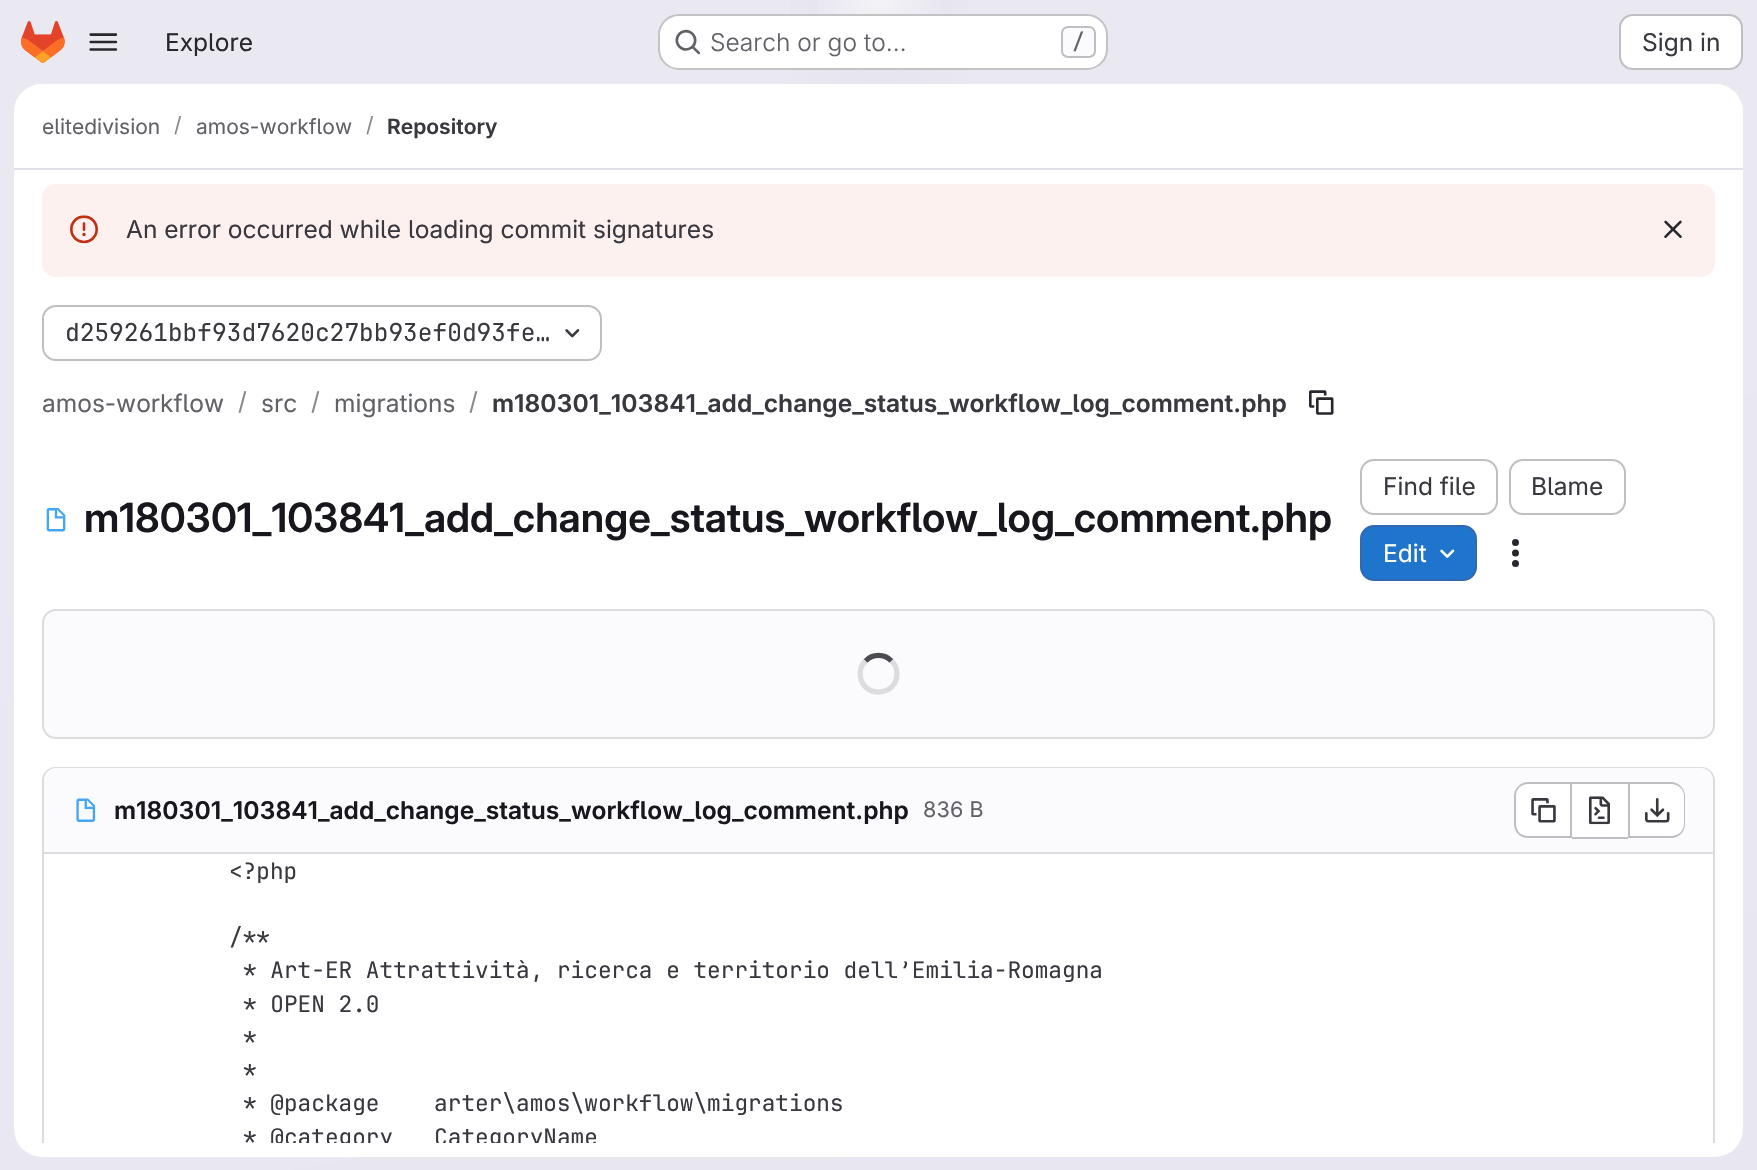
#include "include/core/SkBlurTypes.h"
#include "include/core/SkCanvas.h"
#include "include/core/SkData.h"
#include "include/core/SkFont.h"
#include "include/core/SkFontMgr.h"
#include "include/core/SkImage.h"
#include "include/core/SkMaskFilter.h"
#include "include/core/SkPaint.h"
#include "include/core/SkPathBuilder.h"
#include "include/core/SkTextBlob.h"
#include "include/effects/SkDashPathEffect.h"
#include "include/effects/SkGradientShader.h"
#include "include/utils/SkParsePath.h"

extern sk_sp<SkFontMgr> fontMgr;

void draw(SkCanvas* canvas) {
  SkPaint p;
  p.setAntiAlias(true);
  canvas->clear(SK_ColorWHITE);
  {
    const SkColor colors[] = {SkColorSetRGB(232, 230, 240), SkColorSetRGB(234, 233, 242)};
    const float stops[] = {0, 0.7f};
    const SkPoint ends[] = {{1005, 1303}, {752, -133}};
    p.setShader(SkGradientShader::MakeLinear(ends, colors, stops, 2, SkTileMode::kClamp));
    p.setAlpha(255);
  }
  canvas->drawRect(SkRect::MakeLTRB(0, 0, 1757, 1170), p);
  {
    const SkColor colors[] = {SkColorSetRGB(228, 226, 237), SkColorSetARGB(0, 228, 226, 237)};
    const float stops[] = {0, 0.14f};
    SkMatrix m = SkMatrix::Translate(879, 0).preScale(879, 1171);
    p.setShader(SkGradientShader::MakeRadial({0, 0}, 1, colors, stops, 2, SkTileMode::kClamp, 0, &m));
    p.setAlpha(255);
  }
  canvas->drawRect(SkRect::MakeLTRB(790, 0, 968, 84), p);
  {
    const SkColor colors[] = {SkColorSetRGB(228, 226, 236), SkColorSetARGB(0, 228, 226, 236)};
    const float stops[] = {0, 0.1f};
    SkMatrix m = SkMatrix::Translate(879, 0).preScale(879, 1171);
    p.setShader(SkGradientShader::MakeRadial({0, 0}, 1, colors, stops, 2, SkTileMode::kClamp, 0, &m));
    p.setAlpha(255);
  }
  canvas->drawRect(SkRect::MakeLTRB(860, 8, 901, 43), p);
  {
    const SkColor colors[] = {SkColorSetARGB(153, 255, 255, 255), SkColorSetARGB(0, 255, 255, 255)};
    const float stops[] = {0, 0.05f};
    p.setShader(SkGradientShader::MakeRadial({879, 0}, 1464, colors, stops, 2, SkTileMode::kClamp));
    p.setAlpha(255);
  }
  canvas->drawRect(SkRect::MakeLTRB(818, 0, 940, 62), p);
  canvas->drawImageRect(SkImages::DeferredFromEncodedData(SkData::MakeFromFileName("images/1.png")), SkRect::MakeLTRB(21, 21, 65, 63), SkSamplingOptions());
  canvas->drawImageRect(SkImages::DeferredFromEncodedData(SkData::MakeFromFileName("images/2.png")), SkRect::MakeLTRB(89, 33, 118, 51), SkSamplingOptions());
  p.setShader(nullptr);
  p.setColor(SK_ColorWHITE);
  canvas->drawRoundRect(SkRect::MakeLTRB(658, 14, 1108, 70), 21, 21, p);
  p.setStyle(SkPaint::kStroke_Style);
  p.setStrokeWidth(2);
  p.setColor(SkColorSetARGB(61, 5, 5, 6));
  canvas->drawRoundRect(SkRect::MakeLTRB(659, 15, 1107, 69), 20, 20, p);
  canvas->drawImageRect(SkImages::DeferredFromEncodedData(SkData::MakeFromFileName("images/3.png")), SkRect::MakeLTRB(675, 29, 700, 55), SkSamplingOptions());
  p.setStyle(SkPaint::kFill_Style);
  p.setColor(SkColorSetRGB(251, 250, 253));
  canvas->drawRoundRect(SkRect::MakeLTRB(1062, 27, 1095, 57), 6, 6, p);
  p.setStyle(SkPaint::kStroke_Style);
  p.setColor(SkColorSetRGB(191, 191, 195));
  canvas->drawRoundRect(SkRect::MakeLTRB(1062, 27, 1095, 57), 6, 6, p);
  p.setStyle(SkPaint::kFill_Style);
  p.setColor(SK_ColorWHITE);
  canvas->drawRoundRect(SkRect::MakeLTRB(1620, 15, 1742, 69), 13, 13, p);
  p.setStyle(SkPaint::kStroke_Style);
  p.setColor(SkColorSetRGB(191, 191, 195));
  canvas->drawRoundRect(SkRect::MakeLTRB(1620, 15, 1742, 69), 13, 13, p);
  p.setStyle(SkPaint::kFill_Style);
  p.setColor(SK_ColorWHITE);
  canvas->drawRoundRect(SkRect::MakeLTRB(14, 84, 1743, 1157), 28, 28, p);
  canvas->drawPath(SkPathBuilder().moveTo(42, 84).lineTo(1715, 84).cubicTo(1730.5f, 84, 1743, 96.5f, 1743, 112).lineTo(1743, 170).lineTo(14, 170).lineTo(14, 112).cubicTo(14, 96.5f, 26.5f, 84, 42, 84).close().detach(), p);
  p.setColor(SkColorSetRGB(225, 223, 236));
  canvas->drawRect(SkRect::MakeLTRB(14, 168, 1743, 170), p);
  p.setColor(SkColorSetRGB(252, 241, 239));
  canvas->drawRoundRect(SkRect::MakeLTRB(42, 184, 1715, 277), 14, 14, p);
  canvas->drawImageRect(SkImages::DeferredFromEncodedData(SkData::MakeFromFileName("images/4.png")), SkRect::MakeLTRB(70, 215, 98, 244), SkSamplingOptions());
  canvas->drawImageRect(SkImages::DeferredFromEncodedData(SkData::MakeFromFileName("images/5.png")), SkRect::MakeLTRB(1664, 220, 1682, 238), SkSamplingOptions());
  p.setStyle(SkPaint::kStroke_Style);
  p.setColor(SkColorSetRGB(191, 191, 195));
  canvas->drawRoundRect(SkRect::MakeLTRB(43, 306, 601, 360), 13, 13, p);
  canvas->drawImageRect(SkImages::DeferredFromEncodedData(SkData::MakeFromFileName("images/6.png")), SkRect::MakeLTRB(565, 329, 580, 338), SkSamplingOptions());
  canvas->drawImageRect(SkImages::DeferredFromEncodedData(SkData::MakeFromFileName("images/7.png")), SkRect::MakeLTRB(1309, 390, 1334, 415), SkSamplingOptions());
  canvas->drawImageRect(SkImages::DeferredFromEncodedData(SkData::MakeFromFileName("images/8.png")), SkRect::MakeLTRB(46, 508, 66, 532), SkSamplingOptions());
  canvas->drawRoundRect(SkRect::MakeLTRB(1361, 460, 1497, 514), 13, 13, p);
  canvas->drawRoundRect(SkRect::MakeLTRB(1510, 460, 1625, 514), 13, 13, p);
  p.setStyle(SkPaint::kFill_Style);
  p.setColor(SkColorSetRGB(31, 117, 203));
  canvas->drawRoundRect(SkRect::MakeLTRB(1361, 526, 1476, 580), 13, 13, p);
  p.setStyle(SkPaint::kStroke_Style);
  p.setColor(SkColorSetRGB(47, 104, 180));
  canvas->drawRoundRect(SkRect::MakeLTRB(1361, 526, 1476, 580), 13, 13, p);
  canvas->drawImageRect(SkImages::DeferredFromEncodedData(SkData::MakeFromFileName("images/9.png")), SkRect::MakeLTRB(1440, 549, 1455, 558), SkSamplingOptions());
  canvas->drawImageRect(SkImages::DeferredFromEncodedData(SkData::MakeFromFileName("images/10.png")), SkRect::MakeLTRB(1512, 539, 1519, 567), SkSamplingOptions());
  p.setStyle(SkPaint::kFill_Style);
  p.setColor(SkColorSetRGB(251, 250, 253));
  canvas->drawRoundRect(SkRect::MakeLTRB(43, 610, 1714, 738), 13, 13, p);
  p.setStyle(SkPaint::kStroke_Style);
  p.setColor(SkColorSetRGB(220, 220, 222));
  canvas->drawRoundRect(SkRect::MakeLTRB(43, 610, 1714, 738), 13, 13, p);
  p.setStrokeWidth(5.2f);
  p.setColor(SkColorSetRGB(76, 75, 81));
  canvas->drawPath(SkPathBuilder().moveTo(865.5f, 661).cubicTo(872.5f, 653.5f, 884.5f, 653.5f, 891.5f, 661).detach(), p);
  p.setColor(SkColorSetRGB(220, 220, 222));
  canvas->drawPath(SkPathBuilder().moveTo(891.5f, 661).cubicTo(895, 664, 897, 669, 897, 674).cubicTo(897, 695.5f, 865, 699, 860.5f, 677.5f).cubicTo(859.5f, 671.5f, 861, 665, 865.5f, 661).detach(), p);
  canvas->save();
  canvas->clipRect(SkRect::MakeLTRB(14, 170, 1743, 1143));
  p.setStyle(SkPaint::kFill_Style);
  canvas->drawPath(SkPathBuilder().moveTo(56, 767).cubicTo(48, 767, 42, 773, 42, 781).lineTo(42, 1157).lineTo(44, 1157).lineTo(44, 781).cubicTo(44, 774, 49, 769, 56, 769).lineTo(1701, 769).cubicTo(1708, 769, 1713, 774, 1713, 781).lineTo(1713, 1157).lineTo(1715, 1157).lineTo(1715, 781).cubicTo(1715, 773, 1709, 767, 1701, 767).close().detach(), p);
  canvas->restore();
  p.setColor(SkColorSetRGB(251, 250, 253));
  canvas->drawPath(SkPathBuilder().moveTo(56, 768).lineTo(1701, 768).cubicTo(1707.5f, 768, 1713, 773.5f, 1713, 780).lineTo(1713, 854).lineTo(44, 854).lineTo(44, 780).cubicTo(44, 773.5f, 49.5f, 768, 56, 768).close().detach(), p);
  p.setColor(SkColorSetRGB(220, 220, 222));
  canvas->drawRect(SkRect::MakeLTRB(44, 852, 1713, 854), p);
  canvas->drawImageRect(SkImages::DeferredFromEncodedData(SkData::MakeFromFileName("images/11.png")), SkRect::MakeLTRB(76, 798, 96, 822), SkSamplingOptions());
  p.setColor(SK_ColorWHITE);
  canvas->drawPath(SkPathBuilder().moveTo(1528, 784).lineTo(1570, 784).lineTo(1570, 837).lineTo(1528, 837).cubicTo(1521.5f, 837, 1516, 831.5f, 1516, 825).lineTo(1516, 796).cubicTo(1516, 789.5f, 1521.5f, 784, 1528, 784).close().detach(), p);
  p.setColor(SkColorSetRGB(191, 191, 195));
  canvas->drawPath(SkPathBuilder(SkPathFillType::kEvenOdd).moveTo(1528, 782).lineTo(1570, 782).lineTo(1570, 838).lineTo(1528, 838).cubicTo(1520, 838, 1514, 832, 1514, 824).lineTo(1514, 796).cubicTo(1514, 789, 1520, 782, 1528, 782).close().moveTo(1528, 784).lineTo(1570, 784).lineTo(1570, 836).lineTo(1528, 836).cubicTo(1521, 836, 1516, 831, 1516, 824).lineTo(1516, 796).cubicTo(1516, 789, 1521, 784, 1528, 784).close().detach(), p);
  canvas->drawImageRect(SkImages::DeferredFromEncodedData(SkData::MakeFromFileName("images/12.png")), SkRect::MakeLTRB(1531, 798, 1556, 823), SkSamplingOptions());
  p.setColor(SK_ColorWHITE);
  canvas->drawRect(SkRect::MakeLTRB(1572, 784, 1628, 837), p);
  p.setColor(SkColorSetRGB(191, 191, 195));
  canvas->drawRect(SkRect::MakeLTRB(1572, 782, 1628, 784), p);
  canvas->drawRect(SkRect::MakeLTRB(1572, 837, 1628, 839), p);
  canvas->drawRect(SkRect::MakeLTRB(1570, 782, 1572, 838), p);
  canvas->drawImageRect(SkImages::DeferredFromEncodedData(SkData::MakeFromFileName("images/13.png")), SkRect::MakeLTRB(1589, 796, 1610, 825), SkSamplingOptions());
  p.setColor(SK_ColorWHITE);
  canvas->drawPath(SkPathBuilder().moveTo(1629, 784).lineTo(1672, 784).cubicTo(1678.5f, 784, 1684, 789.5f, 1684, 796).lineTo(1684, 825).cubicTo(1684, 831.5f, 1678.5f, 837, 1672, 837).lineTo(1629, 837).close().detach(), p);
  p.setColor(SkColorSetRGB(191, 191, 195));
  canvas->drawPath(SkPathBuilder(SkPathFillType::kEvenOdd).moveTo(1629, 782).lineTo(1671, 782).cubicTo(1679, 782, 1685, 789, 1685, 796).lineTo(1685, 824).cubicTo(1685, 832, 1679, 838, 1671, 838).lineTo(1629, 838).close().moveTo(1629, 784).lineTo(1671, 784).cubicTo(1678, 784, 1684, 789, 1684, 796).lineTo(1684, 824).cubicTo(1684, 831, 1678, 836, 1671, 836).lineTo(1629, 836).close().detach(), p);
  canvas->drawRect(SkRect::MakeLTRB(1628, 782, 1630, 838), p);
  canvas->drawImageRect(SkImages::DeferredFromEncodedData(SkData::MakeFromFileName("images/14.png")), SkRect::MakeLTRB(1645, 798, 1670, 823), SkSamplingOptions());
  SkFont font1(fontMgr->matchFamilyStyle("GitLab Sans", SkFontStyle::Normal()), 24.5f);
  font1.setSubpixel(true);
  p.setColor(SkColorSetRGB(40, 39, 45));
  canvas->drawString("Explore", 165, 51, font1, p);
  SkFont font2(fontMgr->matchFamilyStyle("GitLab Sans", SkFontStyle(300, SkFontStyle::kNormal_Width, SkFontStyle::kUpright_Slant)), 24.5f);
  font2.setSubpixel(true);
  p.setColor(SkColorSetRGB(98, 97, 104));
  canvas->drawString("Search or go to…", 710, 51, font2, p);
  SkFont font3(fontMgr->matchFamilyStyle("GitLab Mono", SkFontStyle(500, SkFontStyle::kNormal_Width, SkFontStyle::kUpright_Slant)), 21);
  font3.setSubpixel(true);
  canvas->drawString("/", 1072, 49, font3, p);
  p.setColor(SkColorSetRGB(58, 56, 63));
  canvas->drawString("Sign in", 1642, 51, font1, p);
  SkFont font4(fontMgr->matchFamilyStyle("GitLab Sans", SkFontStyle::Normal()), 21);
  font4.setSubpixel(true);
  p.setColor(SkColorSetRGB(98, 97, 104));
  canvas->drawString("elitedivision", 42, 134, font4, p);
  p.setColor(SkColorSetRGB(137, 136, 141));
  canvas->drawString("/", 174, 132, font4, p);
  p.setColor(SkColorSetRGB(98, 97, 104));
  canvas->drawString("amos-workflow", 196, 134, font4, p);
  p.setColor(SkColorSetRGB(137, 136, 141));
  canvas->drawString("/", 366, 132, font4, p);
  SkFont font5(fontMgr->matchFamilyStyle("GitLab Sans", SkFontStyle(600, SkFontStyle::kNormal_Width, SkFontStyle::kUpright_Slant)), 21);
  font5.setSubpixel(true);
  p.setColor(SkColorSetRGB(58, 56, 63));
  canvas->drawString("Repository", 387, 134, font5, p);
  canvas->drawString("An error occurred while loading commit signatures", 126, 238, font1, p);
  SkFont font6(fontMgr->matchFamilyStyle("GitLab Mono", SkFontStyle::Normal()), 24.5f);
  font6.setSubpixel(true);
  canvas->drawString("d259261bbf93d7620c27bb93ef0d93fe…", 65, 341, font6, p);
  p.setColor(SkColorSetRGB(98, 97, 104));
  canvas->drawString("amos-workflow", 42, 412, font1, p);
  p.setColor(SkColorSetRGB(137, 136, 141));
  canvas->drawString("/", 238, 410, font1, p);
  p.setColor(SkColorSetRGB(98, 97, 104));
  canvas->drawString("src", 261, 412, font1, p);
  p.setColor(SkColorSetRGB(137, 136, 141));
  canvas->drawString("/", 311, 410, font1, p);
  p.setColor(SkColorSetRGB(98, 97, 104));
  canvas->drawString("migrations", 334, 412, font1, p);
  p.setColor(SkColorSetRGB(137, 136, 141));
  canvas->drawString("/", 469, 410, font1, p);
  SkFont font7(fontMgr->matchFamilyStyle("GitLab Sans", SkFontStyle(600, SkFontStyle::kNormal_Width, SkFontStyle::kUpright_Slant)), 24.5f);
  font7.setSubpixel(true);
  p.setColor(SkColorSetRGB(58, 56, 63));
  canvas->drawString("m180301_103841_add_change_status_workflow_log_comment.php", 492, 412, font7, p);
  SkFont font8(fontMgr->matchFamilyStyle("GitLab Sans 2", SkFontStyle(600, SkFontStyle::kNormal_Width, SkFontStyle::kUpright_Slant)), 40.25f);
  font8.setSubpixel(true);
  p.setColor(SkColorSetRGB(24, 23, 29));
  canvas->drawString("m180301_103841_add_change_status_workflow_log_comment.php", 84, 532, font8, p);
  p.setColor(SkColorSetRGB(58, 56, 63));
  canvas->drawString("Find file", 1383, 495, font1, p);
  canvas->drawString("Blame", 1531, 495, font1, p);
  p.setColor(SK_ColorWHITE);
  canvas->drawString("Edit", 1383, 562, font1, p);
  p.setColor(SkColorSetRGB(24, 23, 29));
  canvas->drawString("m180301_103841_add_change_status_workflow_log_comment.php", 114, 819, font7, p);
  SkFont font9(fontMgr->matchFamilyStyle("GitLab Sans", SkFontStyle::Normal()), 21.5f);
  font9.setSubpixel(true);
  p.setColor(SkColorSetRGB(98, 97, 104));
  canvas->drawString("836 B", 923, 817, font9, p);
  SkFont font10(fontMgr->matchFamilyStyle("GitLab Mono", SkFontStyle::Normal()), 22.75f);
  font10.setSubpixel(true);
  p.setColor(SkColorSetRGB(58, 56, 63));
  canvas->drawString("<?php", 229, 879, font10, p);
  canvas->drawString("/**", 229, 945, font10, p);
  canvas->drawString("* Art-ER Attrattività, ricerca e territorio dell’Emilia-Romagna", 243, 978, font10, p);
  canvas->drawString("* OPEN 2.0", 243, 1012, font10, p);
  canvas->drawString("*", 243, 1045, font10, p);
  canvas->drawString("*", 243, 1078, font10, p);
  canvas->drawString("* @package    arter\\amos\\workflow\\migrations", 243, 1111, font10, p);
  canvas->save();
  canvas->clipRect(SkRect::MakeLTRB(14, 170, 1743, 1143));
  canvas->drawString("* @category   CategoryName", 243, 1145, font10, p);
  canvas->restore();
}
